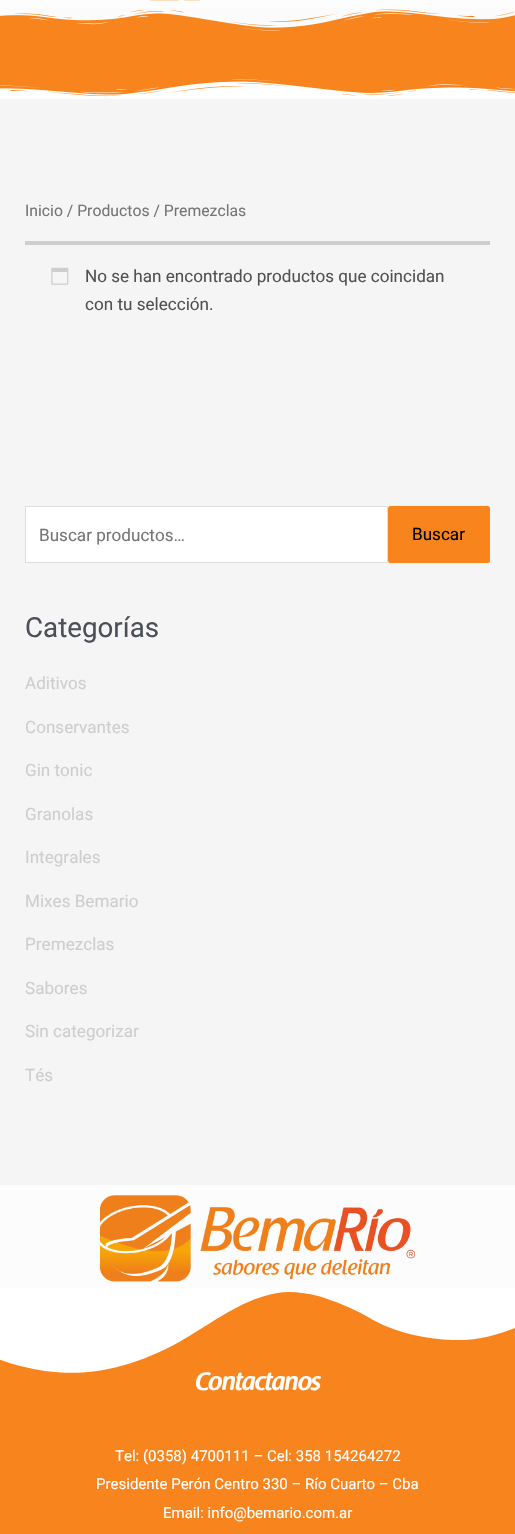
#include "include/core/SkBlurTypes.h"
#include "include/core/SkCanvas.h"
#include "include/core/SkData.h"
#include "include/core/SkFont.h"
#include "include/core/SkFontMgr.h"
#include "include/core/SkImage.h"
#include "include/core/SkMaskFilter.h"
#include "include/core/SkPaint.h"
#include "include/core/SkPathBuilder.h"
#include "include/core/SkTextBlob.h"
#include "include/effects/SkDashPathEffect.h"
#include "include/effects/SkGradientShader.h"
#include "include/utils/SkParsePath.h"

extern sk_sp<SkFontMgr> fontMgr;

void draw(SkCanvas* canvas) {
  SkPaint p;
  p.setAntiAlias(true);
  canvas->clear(SkColorSetRGB(245, 245, 245));
  p.setColor(SkColorSetRGB(253, 253, 253));
  canvas->drawRect(SkRect::MakeLTRB(0, 0, 515, 8), p);
  canvas->drawImageRect(SkImages::DeferredFromEncodedData(SkData::MakeFromFileName("images/1.png")), SkRect::MakeLTRB(149, 0, 200, 1), SkSamplingOptions());
  p.setColor(SkColorSetRGB(247, 132, 28));
  canvas->drawRect(SkRect::MakeLTRB(0, 9, 515, 97), p);
  canvas->drawImageRect(SkImages::DeferredFromEncodedData(SkData::MakeFromFileName("images/2.png")), SkRect::MakeLTRB(0, 8, 515, 31), SkSamplingOptions());
  canvas->drawImageRect(SkImages::DeferredFromEncodedData(SkData::MakeFromFileName("images/3.png")), SkRect::MakeLTRB(0, 79, 515, 99), SkSamplingOptions());
  p.setColor(SkColorSetRGB(206, 206, 206));
  canvas->drawRect(SkRect::MakeLTRB(25, 241, 490, 245), p);
  canvas->drawImageRect(SkImages::DeferredFromEncodedData(SkData::MakeFromFileName("images/4.png")), SkRect::MakeLTRB(51, 267, 69, 285), SkSamplingOptions());
  p.setColor(SK_ColorWHITE);
  canvas->drawRect(SkRect::MakeLTRB(25.5f, 506.5f, 387.5f, 562.5f), p);
  p.setStyle(SkPaint::kStroke_Style);
  p.setStrokeWidth(1);
  p.setColor(SkColorSetRGB(221, 221, 221));
  canvas->drawRect(SkRect::MakeLTRB(25.5f, 506.5f, 387.5f, 562.5f), p);
  p.setStyle(SkPaint::kFill_Style);
  p.setColor(SkColorSetRGB(247, 132, 28));
  canvas->drawRoundRect(SkRect::MakeLTRB(388, 506, 490, 563), 2.5f, 2.5f, p);
  p.setColor(SkColorSetRGB(252, 252, 252));
  canvas->drawRect(SkRect::MakeLTRB(0, 1185, 515, 1288), p);
  canvas->drawImageRect(SkImages::DeferredFromEncodedData(SkData::MakeFromFileName("images/5.png")), SkRect::MakeLTRB(100, 1195, 415, 1282), SkSamplingOptions());
  p.setColor(SkColorSetRGB(247, 132, 28));
  canvas->drawRect(SkRect::MakeLTRB(0, 1292, 515, 1534), p);
  p.setColor(SK_ColorWHITE);
  canvas->drawPath(SkPathBuilder().moveTo(302, 1293).cubicTo(260, 1286, 220, 1318, 186, 1338).cubicTo(142, 1364, 95, 1378, 45, 1371).cubicTo(20, 1367, -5, 1360, -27, 1347).lineTo(-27, 1288).lineTo(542, 1288).lineTo(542, 1314).cubicTo(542, 1314, 501, 1342, 452, 1340).cubicTo(429, 1339, 399, 1334, 375, 1321).cubicTo(363, 1314, 346, 1305, 330, 1300).cubicTo(315, 1294, 308, 1294, 302, 1293).close().detach(), p);
  SkFont font1(fontMgr->matchFamilyStyle("Roboto", SkFontStyle::Normal()), 15.75f);
  font1.setSubpixel(true);
  p.setColor(SkColorSetRGB(117, 117, 117));
  canvas->drawString("Inicio / Productos / Premezclas", 25, 216, font1, p);
  SkFont font2(fontMgr->matchFamilyStyle("Roboto", SkFontStyle::Normal()), 17.1f);
  font2.setSubpixel(true);
  p.setColor(SkColorSetRGB(81, 81, 81));
  canvas->drawString("No se han encontrado productos que coincidan", 85, 282, font2, p);
  canvas->drawString("con tu selección.", 85, 310, font2, p);
  p.setColor(SkColorSetRGB(117, 117, 117));
  canvas->drawString("Buscar productos…", 39, 541, font2, p);
  p.setColor(SK_ColorBLACK);
  canvas->drawString("Buscar", 412, 540, font2, p);
  SkFont font3(fontMgr->matchFamilyStyle("Roboto", SkFontStyle::Normal()), 27.75f);
  font3.setSubpixel(true);
  p.setColor(SkColorSetRGB(75, 79, 88));
  canvas->drawString("Categorías", 25, 637, font3, p);
  p.setColor(SkColorSetRGB(206, 206, 206));
  canvas->drawString("Aditivos", 25, 689, font2, p);
  canvas->drawString("Conservantes", 25, 733, font2, p);
  canvas->drawString("Gin tonic", 25, 776, font2, p);
  canvas->drawString("Granolas", 25, 820, font2, p);
  canvas->drawString("Integrales", 25, 863, font2, p);
  canvas->drawString("Mixes Bemario", 25, 907, font2, p);
  canvas->drawString("Premezclas", 25, 950, font2, p);
  canvas->drawString("Sabores", 25, 994, font2, p);
  canvas->drawString("Sin categorizar", 25, 1037, font2, p);
  canvas->drawString("Tés", 25, 1081, font2, p);
  SkFont font4(fontMgr->matchFamilyStyle("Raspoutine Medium", SkFontStyle::BoldItalic()), 23.75f);
  font4.setSubpixel(true);
  p.setColor(SK_ColorWHITE);
  canvas->drawString("Contactanos", 195, 1390, font4, p);
  SkFont font5(fontMgr->matchFamilyStyle("Roboto", SkFontStyle::Normal()), 15);
  font5.setSubpixel(true);
  canvas->drawString("Tel: (0358) 4700111 – Cel: 358 154264272", 115, 1461, font5, p);
  canvas->drawString("Presidente Perón Centro 330 – Río Cuarto – Cba", 96, 1489, font5, p);
  canvas->drawString("Email: info@bemario.com.ar", 163, 1518, font5, p);
}
